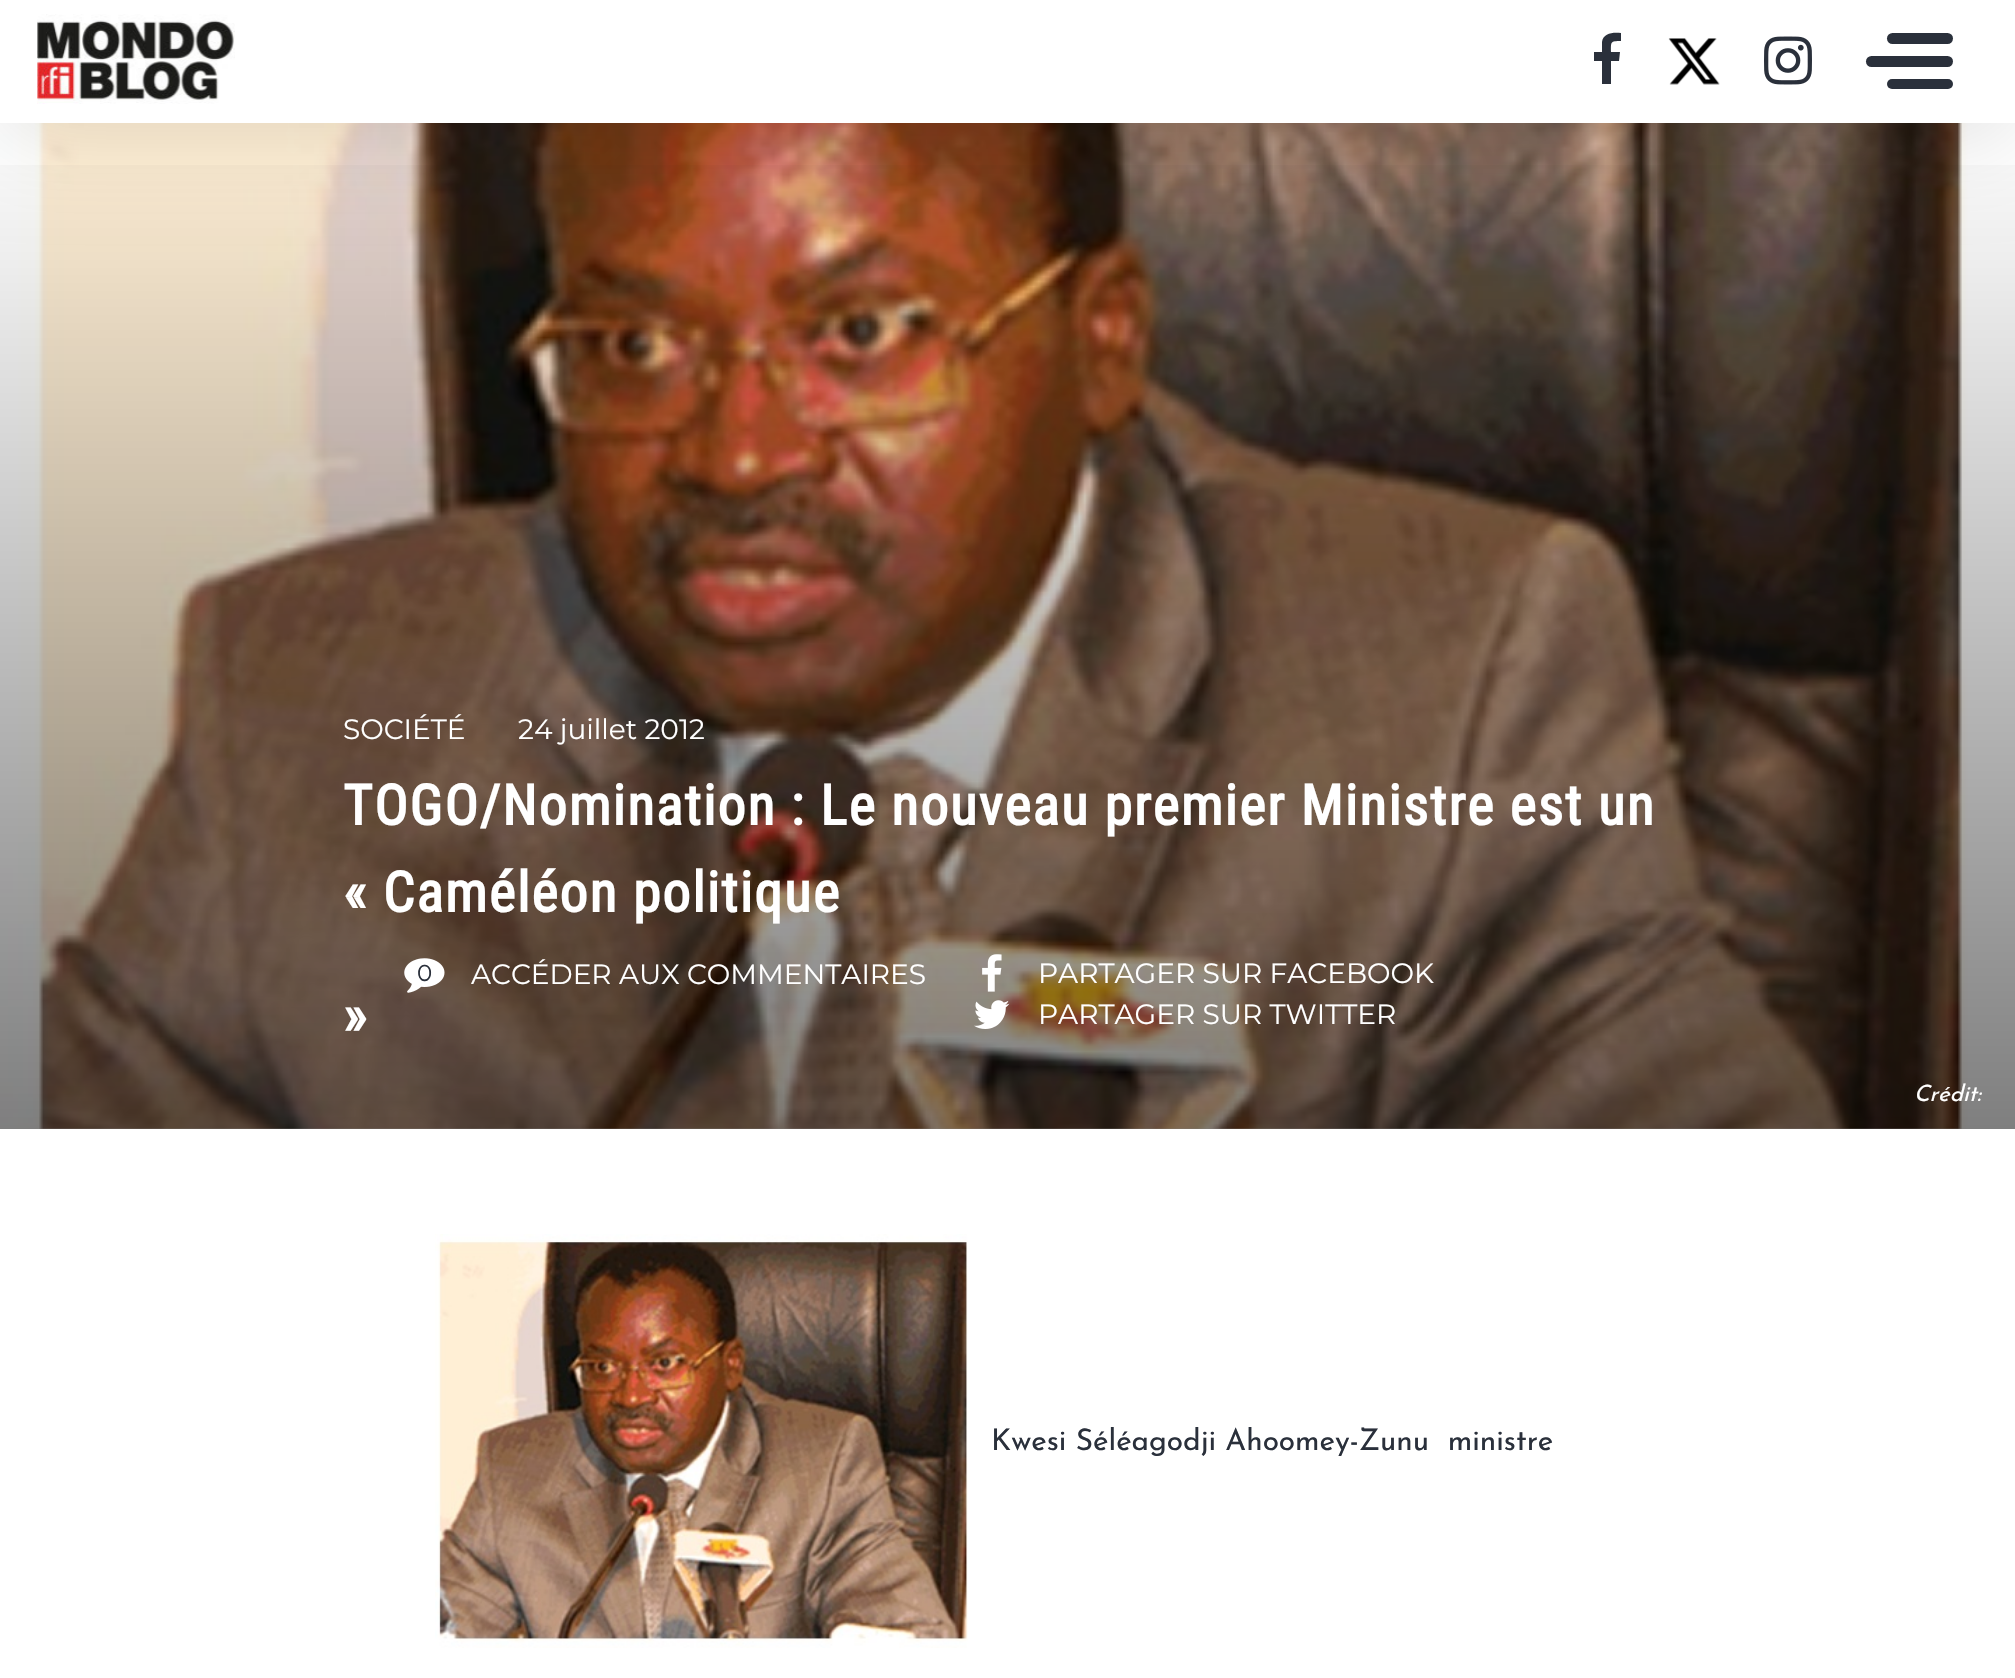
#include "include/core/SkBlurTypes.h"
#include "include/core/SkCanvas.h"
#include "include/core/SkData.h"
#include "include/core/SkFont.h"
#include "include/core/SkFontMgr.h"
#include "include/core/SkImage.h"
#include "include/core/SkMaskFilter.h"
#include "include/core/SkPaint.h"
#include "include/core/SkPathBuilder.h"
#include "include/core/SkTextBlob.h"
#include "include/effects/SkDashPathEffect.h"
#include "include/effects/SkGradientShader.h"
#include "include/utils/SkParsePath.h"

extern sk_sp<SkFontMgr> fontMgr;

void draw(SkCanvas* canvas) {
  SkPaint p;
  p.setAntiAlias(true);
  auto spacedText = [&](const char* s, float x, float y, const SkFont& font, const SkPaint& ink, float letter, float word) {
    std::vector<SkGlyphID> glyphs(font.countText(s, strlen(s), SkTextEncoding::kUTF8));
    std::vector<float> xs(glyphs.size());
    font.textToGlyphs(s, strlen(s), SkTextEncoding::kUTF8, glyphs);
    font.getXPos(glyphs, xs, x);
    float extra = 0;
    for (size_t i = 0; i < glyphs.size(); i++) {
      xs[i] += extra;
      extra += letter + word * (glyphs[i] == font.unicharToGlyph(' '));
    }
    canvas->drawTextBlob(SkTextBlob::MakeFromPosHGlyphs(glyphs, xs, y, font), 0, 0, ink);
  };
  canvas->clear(SK_ColorWHITE);
  canvas->drawImageRect(SkImages::DeferredFromEncodedData(SkData::MakeFromFileName("images/4.png")), SkRect::MakeLTRB(0, 123, 2015, 1129), SkSamplingOptions());
  {
    const SkColor colors[] = {SkColorSetARGB(0, 0, 0, 0), SkColorSetARGB(128, 0, 0, 0)};
    const float stops[] = {0, 1};
    const SkPoint ends[] = {{1008, 122}, {1008, 1129}};
    p.setShader(SkGradientShader::MakeLinear(ends, colors, stops, 2, SkTileMode::kClamp));
    p.setAlpha(255);
  }
  canvas->drawRect(SkRect::MakeLTRB(0, 165, 2015, 1129), p);
  p.setShader(nullptr);
  p.setColor(SkColorSetARGB(28, 0, 0, 0));
  p.setMaskFilter(SkMaskFilter::MakeBlur(kNormal_SkBlurStyle, 44));
  canvas->drawRect(SkRect::MakeLTRB(0, 18, 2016, 140), p);
  p.setMaskFilter(nullptr);
  p.setColor(SK_ColorWHITE);
  canvas->drawRect(SkRect::MakeLTRB(0, 0, 2015, 123), p);
  canvas->drawImageRect(SkImages::DeferredFromEncodedData(SkData::MakeFromFileName("images/1.png")), SkRect::MakeLTRB(37, 14, 235, 104), SkSamplingOptions());
  p.setColor(SkColorSetRGB(42, 48, 59));
  canvas->drawPath(SkPathBuilder().moveTo(1621, 33).lineTo(1621, 41).cubicTo(1610, 41, 1611, 42, 1611, 52).lineTo(1620, 52).lineTo(1619, 61).lineTo(1611, 61).lineTo(1611, 84).lineTo(1602, 84).lineTo(1602, 61).lineTo(1594, 61).lineTo(1594, 52).lineTo(1602, 52).lineTo(1602, 42).cubicTo(1603, 33, 1613, 32, 1621, 33).close().detach(), p);
  canvas->drawImageRect(SkImages::DeferredFromEncodedData(SkData::MakeFromFileName("images/2.png")), SkRect::MakeLTRB(1668, 38, 1720, 85), SkSamplingOptions());
  canvas->drawImageRect(SkImages::DeferredFromEncodedData(SkData::MakeFromFileName("images/3.png")), SkRect::MakeLTRB(1764, 36, 1812, 85), SkSamplingOptions());
  canvas->drawRoundRect(SkRect::MakeLTRB(1866, 56, 1953, 67), 5.5f, 5.5f, p);
  canvas->drawRoundRect(SkRect::MakeLTRB(1887, 33, 1953, 44), 5.5f, 5.5f, p);
  canvas->drawRoundRect(SkRect::MakeLTRB(1887, 79, 1953, 89), 5, 5, p);
  canvas->drawImageRect(SkImages::DeferredFromEncodedData(SkData::MakeFromFileName("images/5.png")), SkRect::MakeLTRB(404, 958, 445, 993), SkSamplingOptions());
  canvas->drawImageRect(SkImages::DeferredFromEncodedData(SkData::MakeFromFileName("images/6.png")), SkRect::MakeLTRB(982, 954, 1002, 992), SkSamplingOptions());
  canvas->drawImageRect(SkImages::DeferredFromEncodedData(SkData::MakeFromFileName("images/7.png")), SkRect::MakeLTRB(974, 1000, 1010, 1029), SkSamplingOptions());
  canvas->drawImageRect(SkImages::DeferredFromEncodedData(SkData::MakeFromFileName("images/8.png")), SkRect::MakeLTRB(435, 1234, 968, 1648), SkSamplingOptions());
  SkFont font1(fontMgr->matchFamilyStyle("Montserrat", SkFontStyle::Normal()), 28);
  font1.setSubpixel(true);
  p.setColor(SK_ColorWHITE);
  canvas->drawString("SOCIÉTÉ", 343, 739, font1, p);
  canvas->drawString("24 juillet 2012", 518, 739, font1, p);
  SkFont font2(fontMgr->matchFamilyStyle("Roboto Condensed", SkFontStyle::Bold()), 56);
  font2.setSubpixel(true);
  spacedText("TOGO/Nomination : Le nouveau premier Ministre est un", 343, 825, font2, p, 1.75f, 0);
  spacedText("« Caméléon politique", 343, 912, font2, p, 1.75f, 0);
  spacedText("»", 343, 1035, font2, p, 1.75f, 0);
  SkFont font3(fontMgr->matchFamilyStyle("Montserrat", SkFontStyle::Normal()), 23);
  font3.setSubpixel(true);
  p.setColor(SkColorSetRGB(42, 48, 59));
  canvas->drawString("0", 417, 981, font3, p);
  p.setColor(SK_ColorWHITE);
  canvas->drawString("ACCÉDER AUX COMMENTAIRES", 471, 984, font1, p);
  canvas->drawString("PARTAGER SUR FACEBOOK", 1038, 983, font1, p);
  canvas->drawString("PARTAGER SUR TWITTER", 1038, 1024, font1, p);
  SkFont font4(fontMgr->matchFamilyStyle("Josefin Sans", SkFontStyle(100, SkFontStyle::kNormal_Width, SkFontStyle::kItalic_Slant)), 22.5f);
  font4.setSubpixel(true);
  canvas->drawString("Crédit:", 1914, 1101, font4, p);
  SkFont font5(fontMgr->matchFamilyStyle("Josefin Sans", SkFontStyle(100, SkFontStyle::kNormal_Width, SkFontStyle::kUpright_Slant)), 29.75f);
  font5.setSubpixel(true);
  p.setColor(SkColorSetRGB(42, 48, 59));
  canvas->drawString("Kwesi Séléagodji Ahoomey-Zunu  ministre", 991, 1450, font5, p);
}
